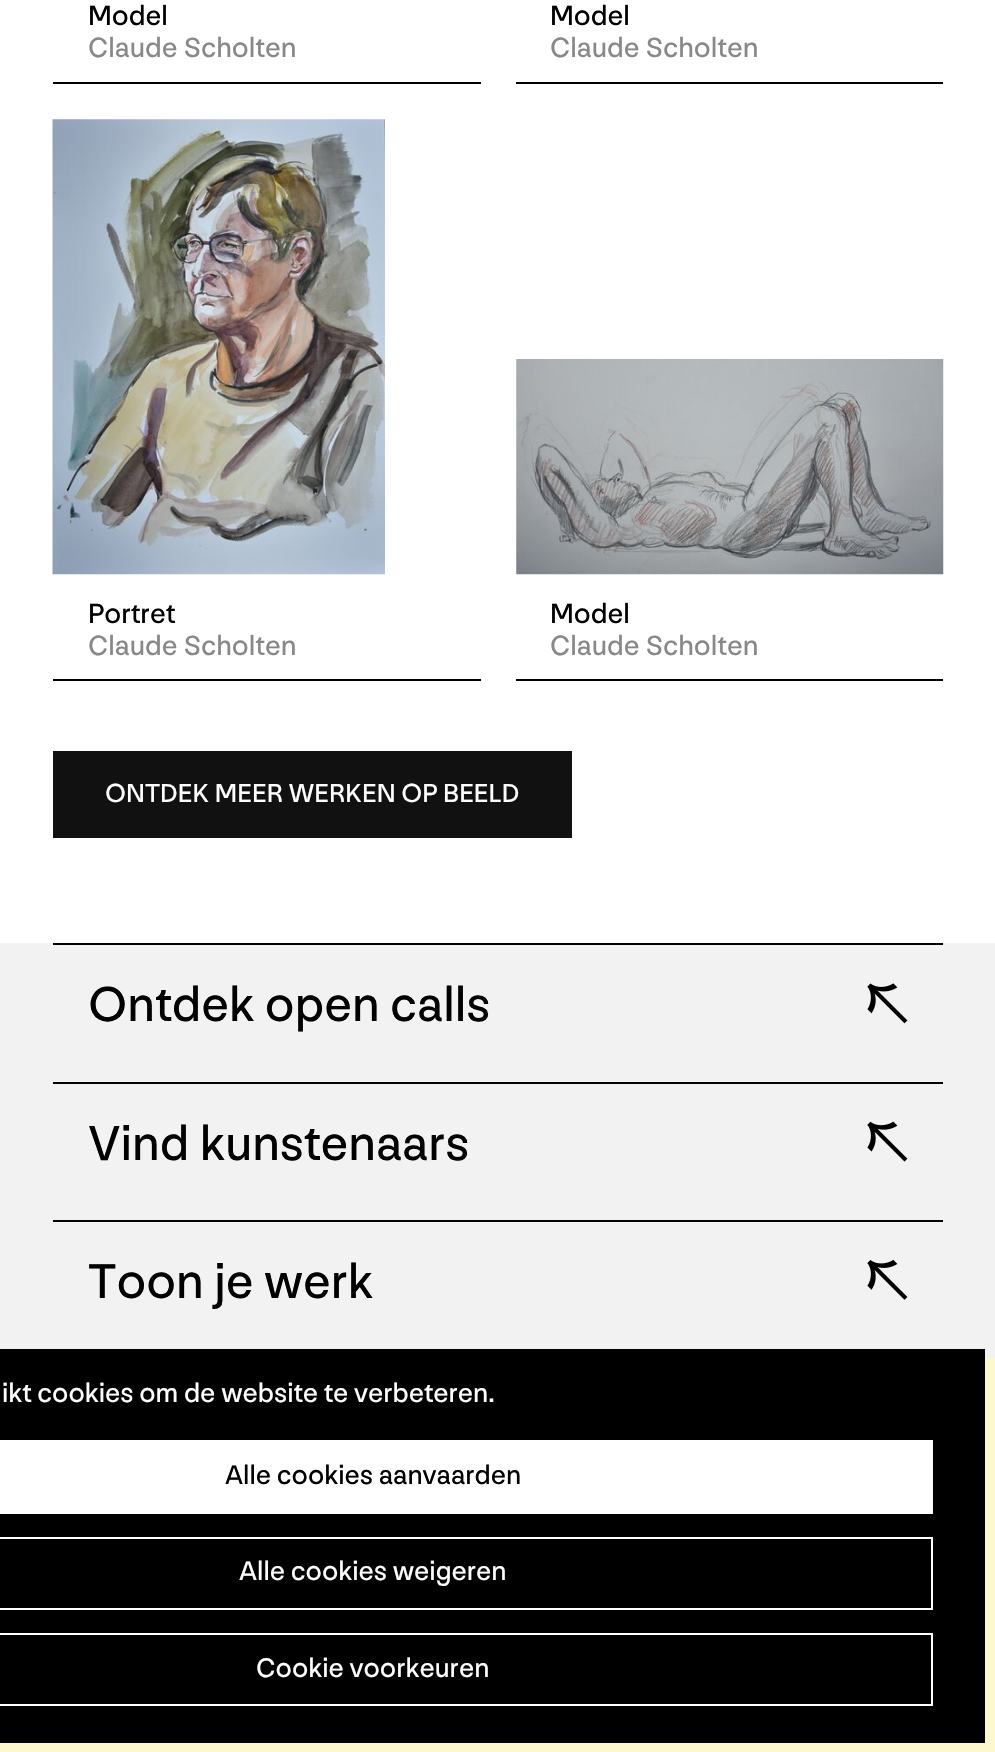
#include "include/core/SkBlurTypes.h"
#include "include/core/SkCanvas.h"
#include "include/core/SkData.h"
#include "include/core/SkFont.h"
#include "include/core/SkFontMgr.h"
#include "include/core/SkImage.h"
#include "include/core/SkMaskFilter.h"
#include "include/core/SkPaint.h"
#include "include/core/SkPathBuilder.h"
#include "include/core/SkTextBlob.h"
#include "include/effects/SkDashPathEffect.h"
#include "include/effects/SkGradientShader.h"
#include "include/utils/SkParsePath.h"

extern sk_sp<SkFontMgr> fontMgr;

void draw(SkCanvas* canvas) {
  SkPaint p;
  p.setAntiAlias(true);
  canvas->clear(SK_ColorWHITE);
  p.setColor(SK_ColorBLACK);
  canvas->drawRect(SkRect::MakeLTRB(53, 82, 481, 84), p);
  canvas->drawRect(SkRect::MakeLTRB(516, 82, 943, 84), p);
  canvas->drawImageRect(SkImages::DeferredFromEncodedData(SkData::MakeFromFileName("images/1.png")), SkRect::MakeLTRB(52, 119, 385, 575), SkSamplingOptions());
  canvas->drawRect(SkRect::MakeLTRB(53, 679, 481, 681), p);
  canvas->drawImageRect(SkImages::DeferredFromEncodedData(SkData::MakeFromFileName("images/2.png")), SkRect::MakeLTRB(516, 359, 944, 575), SkSamplingOptions());
  canvas->drawRect(SkRect::MakeLTRB(516, 679, 943, 681), p);
  p.setColor(SkColorSetRGB(17, 17, 17));
  canvas->drawRect(SkRect::MakeLTRB(53, 751, 572, 838), p);
  p.setColor(SkColorSetRGB(242, 242, 242));
  canvas->drawRect(SkRect::MakeLTRB(0, 943, 995, 1358), p);
  p.setColor(SK_ColorBLACK);
  canvas->drawRect(SkRect::MakeLTRB(53, 943, 943, 945), p);
  canvas->drawRect(SkRect::MakeLTRB(53, 1082, 943, 1084), p);
  canvas->drawImageRect(SkImages::DeferredFromEncodedData(SkData::MakeFromFileName("images/3.png")), SkRect::MakeLTRB(867, 983, 908, 1024), SkSamplingOptions());
  canvas->drawRect(SkRect::MakeLTRB(53, 1220, 943, 1222), p);
  canvas->drawImageRect(SkImages::DeferredFromEncodedData(SkData::MakeFromFileName("images/4.png")), SkRect::MakeLTRB(867, 1121, 908, 1162), SkSamplingOptions());
  canvas->drawImageRect(SkImages::DeferredFromEncodedData(SkData::MakeFromFileName("images/5.png")), SkRect::MakeLTRB(867, 1259, 908, 1300), SkSamplingOptions());
  p.setColor(SkColorSetRGB(253, 248, 206));
  canvas->drawRect(SkRect::MakeLTRB(0, 1358, 995, 1752), p);
  p.setColor(SK_ColorBLACK);
  canvas->drawRect(SkRect::MakeLTRB(0, 1349, 985, 1743), p);
  p.setColor(SK_ColorWHITE);
  canvas->drawRect(SkRect::MakeLTRB(0, 1440, 933, 1514), p);
  p.setStyle(SkPaint::kStroke_Style);
  p.setStrokeWidth(2);
  canvas->drawRect(SkRect::MakeLTRB(-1, 1538, 932, 1609), p);
  canvas->drawRect(SkRect::MakeLTRB(-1, 1634, 932, 1705), p);
  SkFont font1(fontMgr->matchFamilyStyle("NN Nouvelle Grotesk", SkFontStyle::Normal()), 29);
  font1.setSubpixel(true);
  p.setStyle(SkPaint::kFill_Style);
  p.setColor(SK_ColorBLACK);
  canvas->drawString("Model", 88, 25, font1, p);
  p.setColor(SkColorSetRGB(136, 136, 136));
  canvas->drawString("Claude Scholten", 88, 57, font1, p);
  p.setColor(SK_ColorBLACK);
  canvas->drawString("Model", 550, 25, font1, p);
  p.setColor(SkColorSetRGB(136, 136, 136));
  canvas->drawString("Claude Scholten", 550, 57, font1, p);
  p.setColor(SK_ColorBLACK);
  canvas->drawString("Portret", 88, 623, font1, p);
  p.setColor(SkColorSetRGB(136, 136, 136));
  canvas->drawString("Claude Scholten", 88, 655, font1, p);
  p.setColor(SK_ColorBLACK);
  canvas->drawString("Model", 550, 623, font1, p);
  p.setColor(SkColorSetRGB(136, 136, 136));
  canvas->drawString("Claude Scholten", 550, 655, font1, p);
  SkFont font2(fontMgr->matchFamilyStyle("NN Nouvelle Grotesk", SkFontStyle::Normal()), 27.25f);
  font2.setSubpixel(true);
  p.setColor(SK_ColorWHITE);
  canvas->drawString("ONTDEK MEER WERKEN OP BEELD", 105, 802, font2, p);
  SkFont font3(fontMgr->matchFamilyStyle("NN Nouvelle Grotesk", SkFontStyle::Normal()), 51);
  font3.setSubpixel(true);
  p.setColor(SK_ColorBLACK);
  canvas->drawString("Ontdek open calls", 88, 1021, font3, p);
  canvas->drawString("Vind kunstenaars", 88, 1160, font3, p);
  canvas->drawString("Toon je werk", 88, 1298, font3, p);
  SkFont font4(fontMgr->matchFamilyStyle("NN Nouvelle Grotesk", SkFontStyle::Normal()), 28);
  font4.setSubpixel(true);
  p.setColor(SK_ColorWHITE);
  canvas->drawString("ikt cookies om de website te verbeteren.", 2, 1402, font4, p);
  p.setColor(SK_ColorBLACK);
  canvas->drawString("Alle cookies aanvaarden", 225, 1484, font4, p);
  p.setColor(SK_ColorWHITE);
  canvas->drawString("Alle cookies weigeren", 239, 1580, font4, p);
  canvas->drawString("Cookie voorkeuren", 256, 1677, font4, p);
}
